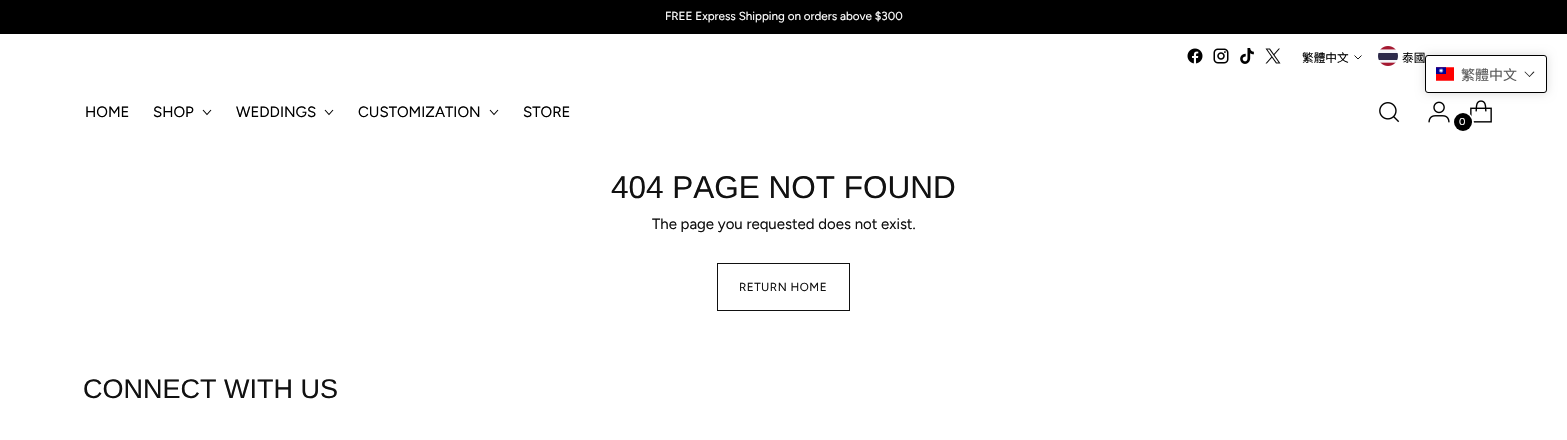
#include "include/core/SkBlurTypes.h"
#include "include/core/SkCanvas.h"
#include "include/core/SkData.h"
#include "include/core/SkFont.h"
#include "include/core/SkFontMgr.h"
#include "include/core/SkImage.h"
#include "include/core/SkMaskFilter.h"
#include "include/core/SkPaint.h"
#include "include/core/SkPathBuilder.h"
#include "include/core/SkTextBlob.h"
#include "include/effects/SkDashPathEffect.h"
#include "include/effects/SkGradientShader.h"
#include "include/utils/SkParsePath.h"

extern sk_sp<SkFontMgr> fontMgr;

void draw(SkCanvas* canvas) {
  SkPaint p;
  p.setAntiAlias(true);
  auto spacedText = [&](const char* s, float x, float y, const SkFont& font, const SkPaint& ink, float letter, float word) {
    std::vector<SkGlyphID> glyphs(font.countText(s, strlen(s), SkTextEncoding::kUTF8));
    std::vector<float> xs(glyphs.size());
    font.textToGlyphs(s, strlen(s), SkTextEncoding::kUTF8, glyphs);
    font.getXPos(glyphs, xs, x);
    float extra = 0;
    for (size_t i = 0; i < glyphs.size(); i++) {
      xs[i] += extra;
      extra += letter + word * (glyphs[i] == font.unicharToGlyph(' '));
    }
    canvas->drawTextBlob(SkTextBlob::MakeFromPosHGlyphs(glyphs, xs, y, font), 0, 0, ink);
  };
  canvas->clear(SK_ColorWHITE);
  p.setColor(SK_ColorBLACK);
  canvas->drawRect(SkRect::MakeLTRB(0, 0, 1567, 34), p);
  canvas->drawImageRect(SkImages::DeferredFromEncodedData(SkData::MakeFromFileName("images/1.png")), SkRect::MakeLTRB(1187, 48, 1203, 64), SkSamplingOptions());
  canvas->drawImageRect(SkImages::DeferredFromEncodedData(SkData::MakeFromFileName("images/2.png")), SkRect::MakeLTRB(1213, 48, 1229, 64), SkSamplingOptions());
  canvas->drawImageRect(SkImages::DeferredFromEncodedData(SkData::MakeFromFileName("images/3.png")), SkRect::MakeLTRB(1240, 48, 1254, 64), SkSamplingOptions());
  canvas->drawImageRect(SkImages::DeferredFromEncodedData(SkData::MakeFromFileName("images/4.png")), SkRect::MakeLTRB(1265, 48, 1281, 64), SkSamplingOptions());
  p.setStyle(SkPaint::kStroke_Style);
  p.setStrokeWidth(0.9f);
  canvas->drawPath(SkPathBuilder().moveTo(1354.5f, 55.5f).lineTo(1358, 59).lineTo(1361.5f, 55.5f).detach(), p);
  canvas->drawImageRect(SkImages::DeferredFromEncodedData(SkData::MakeFromFileName("images/5.png")), SkRect::MakeLTRB(1378, 46, 1398, 66), SkSamplingOptions());
  p.setStrokeWidth(1.1f);
  canvas->drawPath(SkPathBuilder().moveTo(203, 110).lineTo(207, 114.5f).lineTo(211, 110).detach(), p);
  canvas->drawPath(SkPathBuilder().moveTo(325, 110).lineTo(329, 114.5f).lineTo(333, 110).detach(), p);
  canvas->drawPath(SkPathBuilder().moveTo(490, 110).lineTo(494, 114.5f).lineTo(498, 110).detach(), p);
  canvas->drawImageRect(SkImages::DeferredFromEncodedData(SkData::MakeFromFileName("images/6.png")), SkRect::MakeLTRB(1379, 102, 1400, 123), SkSamplingOptions());
  canvas->drawImageRect(SkImages::DeferredFromEncodedData(SkData::MakeFromFileName("images/7.png")), SkRect::MakeLTRB(1428, 101, 1450, 123), SkSamplingOptions());
  canvas->drawImageRect(SkImages::DeferredFromEncodedData(SkData::MakeFromFileName("images/8.png")), SkRect::MakeLTRB(1470, 100, 1492, 123), SkSamplingOptions());
  p.setStrokeWidth(2);
  p.setColor(SK_ColorWHITE);
  canvas->drawCircle(1463.5f, 122.5f, 9.5f, p);
  p.setStyle(SkPaint::kFill_Style);
  p.setColor(SK_ColorBLACK);
  canvas->drawCircle(1463, 122, 9, p);
  p.setStyle(SkPaint::kStroke_Style);
  p.setStrokeWidth(1);
  p.setColor(SkColorSetRGB(17, 17, 17));
  canvas->drawRect(SkRect::MakeLTRB(717.5f, 263.5f, 849.5f, 310.5f), p);
  p.setStyle(SkPaint::kFill_Style);
  p.setColor(SkColorSetARGB(38, 0, 0, 0));
  p.setMaskFilter(SkMaskFilter::MakeBlur(kNormal_SkBlurStyle, 5));
  canvas->drawRoundRect(SkRect::MakeLTRB(1425, 55, 1547, 93), 3, 3, p);
  p.setMaskFilter(nullptr);
  p.setColor(SK_ColorWHITE);
  canvas->drawRoundRect(SkRect::MakeLTRB(1425.5f, 55.5f, 1546.5f, 92.5f), 2.5f, 2.5f, p);
  p.setStyle(SkPaint::kStroke_Style);
  p.setColor(SK_ColorBLACK);
  canvas->drawRoundRect(SkRect::MakeLTRB(1425.5f, 55.5f, 1546.5f, 92.5f), 2.5f, 2.5f, p);
  canvas->drawImageRect(SkImages::DeferredFromEncodedData(SkData::MakeFromFileName("images/9.png")), SkRect::MakeLTRB(1436, 67, 1454, 81), SkSamplingOptions());
  p.setStyle(SkPaint::kFill_Style);
  p.setColor(SkColorSetRGB(26, 26, 26));
  canvas->drawPath(SkPathBuilder().moveTo(1533.5f, 71.5f).lineTo(1534.5f, 72).lineTo(1529.5f, 77).lineTo(1529, 76.5f).close().detach(), p);
  canvas->drawPath(SkPathBuilder().moveTo(1525, 71.5f).lineTo(1530, 76.5f).lineTo(1529.5f, 77).lineTo(1524.5f, 72).close().detach(), p);
  SkFont font1(fontMgr->matchFamilyStyle("Figtree", SkFontStyle::Normal()), 11.65f);
  font1.setSubpixel(true);
  p.setColor(SK_ColorWHITE);
  canvas->drawString("FREE Express Shipping on orders above $300", 665, 20, font1, p);
  SkFont font2(fontMgr->matchFamilyStyle("Noto Sans CJK TC", SkFontStyle::Normal()), 11.65f);
  font2.setSubpixel(true);
  p.setColor(SK_ColorBLACK);
  canvas->drawString("繁體中文", 1302, 62, font2, p);
  canvas->drawString("泰國", 1402, 62, font2, p);
  SkFont font3(fontMgr->matchFamilyStyle("Figtree", SkFontStyle::Normal()), 15);
  font3.setSubpixel(true);
  canvas->drawString("HOME", 85, 117, font3, p);
  canvas->drawString("SHOP", 153, 117, font3, p);
  canvas->drawString("WEDDINGS", 236, 117, font3, p);
  canvas->drawString("CUSTOMIZATION", 358, 117, font3, p);
  canvas->drawString("STORE", 523, 117, font3, p);
  SkFont font4(fontMgr->matchFamilyStyle("Figtree", SkFontStyle::Normal()), 10);
  font4.setSubpixel(true);
  p.setColor(SK_ColorWHITE);
  canvas->drawString("0", 1459, 125, font4, p);
  SkFont font5(fontMgr->matchFamilyStyle("Liberation Sans", SkFontStyle::Normal()), 31.5f);
  font5.setSubpixel(true);
  p.setColor(SkColorSetRGB(17, 17, 17));
  canvas->drawString("404 PAGE NOT FOUND", 611, 198, font5, p);
  canvas->drawString("The page you requested does not exist.", 652, 229, font3, p);
  spacedText("RETURN HOME", 739, 291, font1, p, 0.5f, 0);
  SkFont font6(fontMgr->matchFamilyStyle("Liberation Sans", SkFontStyle::Normal()), 27);
  font6.setSubpixel(true);
  canvas->drawString("CONNECT WITH US", 83, 398, font6, p);
  SkFont font7(fontMgr->matchFamilyStyle("Noto Sans CJK TC", SkFontStyle::Normal()), 14);
  font7.setSubpixel(true);
  p.setColor(SkColorSetRGB(92, 92, 92));
  canvas->drawString("繁體中文", 1461, 80, font7, p);
}
